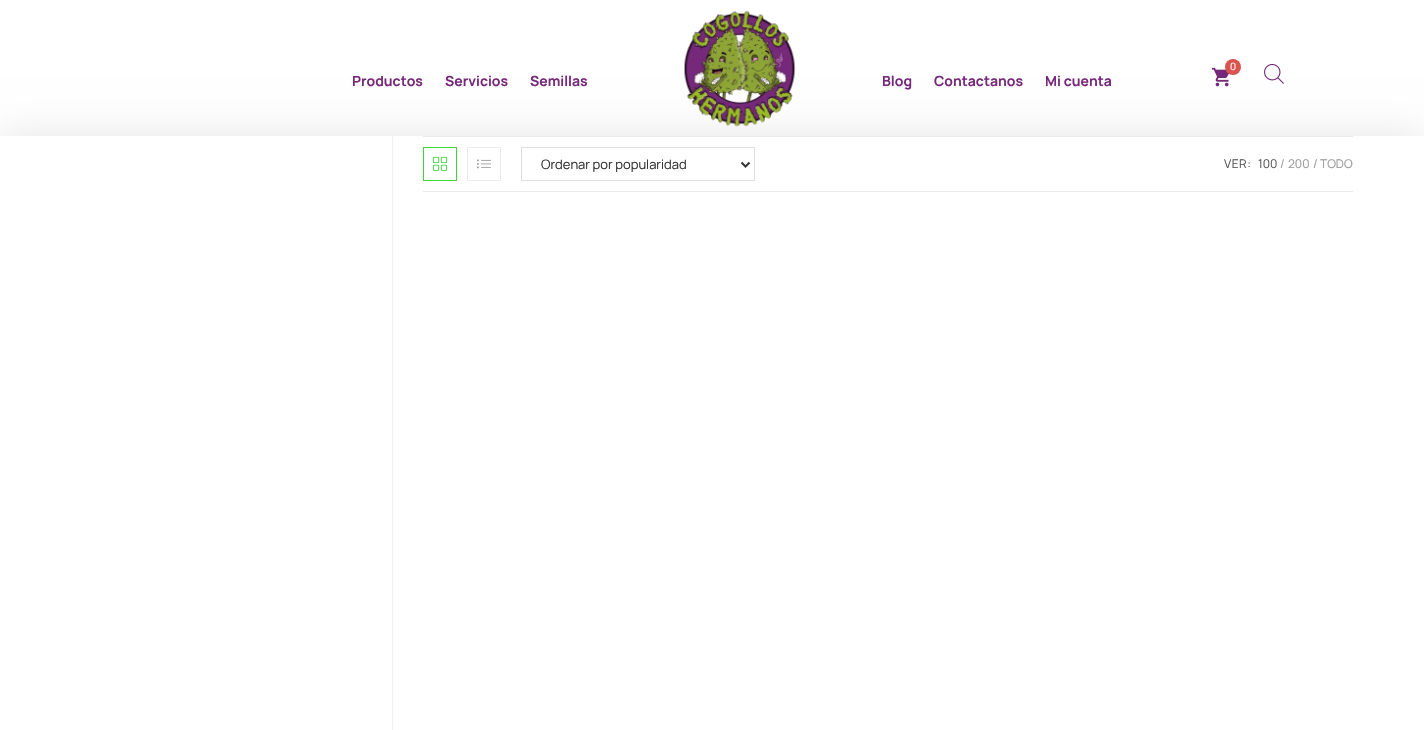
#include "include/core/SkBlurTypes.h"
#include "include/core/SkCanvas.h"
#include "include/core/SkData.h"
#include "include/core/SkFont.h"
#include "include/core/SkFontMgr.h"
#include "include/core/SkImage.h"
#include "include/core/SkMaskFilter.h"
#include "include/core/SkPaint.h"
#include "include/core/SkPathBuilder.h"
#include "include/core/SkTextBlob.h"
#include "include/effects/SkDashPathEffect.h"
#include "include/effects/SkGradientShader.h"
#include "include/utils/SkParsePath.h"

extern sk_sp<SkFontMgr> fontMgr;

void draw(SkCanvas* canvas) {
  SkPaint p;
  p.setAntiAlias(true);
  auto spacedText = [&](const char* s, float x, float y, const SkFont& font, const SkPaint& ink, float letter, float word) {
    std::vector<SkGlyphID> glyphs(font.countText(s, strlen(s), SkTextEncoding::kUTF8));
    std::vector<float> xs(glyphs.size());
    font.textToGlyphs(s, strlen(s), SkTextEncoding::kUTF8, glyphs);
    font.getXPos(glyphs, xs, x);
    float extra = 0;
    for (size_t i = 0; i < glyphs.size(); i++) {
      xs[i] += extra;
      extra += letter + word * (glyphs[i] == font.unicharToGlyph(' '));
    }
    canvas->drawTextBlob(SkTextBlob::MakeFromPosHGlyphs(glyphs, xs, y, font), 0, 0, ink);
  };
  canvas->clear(SK_ColorWHITE);
  p.setColor(SkColorSetARGB(26, 0, 0, 0));
  p.setMaskFilter(SkMaskFilter::MakeBlur(kNormal_SkBlurStyle, 20));
  canvas->drawRect(SkRect::MakeLTRB(0, 136, 1424, 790), p);
  p.setMaskFilter(nullptr);
  canvas->drawImageRect(SkImages::DeferredFromEncodedData(SkData::MakeFromFileName("images/1.png")), SkRect::MakeLTRB(683, 10, 796, 127), SkSamplingOptions());
  canvas->drawImageRect(SkImages::DeferredFromEncodedData(SkData::MakeFromFileName("images/2.png")), SkRect::MakeLTRB(1211, 67, 1230, 87), SkSamplingOptions());
  p.setColor(SkColorSetRGB(217, 83, 79));
  canvas->drawCircle(1233, 67, 8, p);
  canvas->drawImageRect(SkImages::DeferredFromEncodedData(SkData::MakeFromFileName("images/3.png")), SkRect::MakeLTRB(1264, 64, 1284, 84), SkSamplingOptions());
  p.setColor(SK_ColorWHITE);
  canvas->drawRect(SkRect::MakeLTRB(0, 136, 1424, 730), p);
  p.setColor(SkColorSetRGB(241, 241, 241));
  canvas->drawRect(SkRect::MakeLTRB(392, 136, 393, 730), p);
  p.setColor(SkColorSetRGB(234, 234, 234));
  canvas->drawRect(SkRect::MakeLTRB(423, 136, 1353, 137), p);
  canvas->drawRect(SkRect::MakeLTRB(423, 191, 1353, 192), p);
  p.setStyle(SkPaint::kStroke_Style);
  p.setStrokeWidth(1);
  p.setColor(SkColorSetRGB(59, 214, 59));
  canvas->drawRect(SkRect::MakeLTRB(423.5f, 147.5f, 456.5f, 180.5f), p);
  canvas->drawImageRect(SkImages::DeferredFromEncodedData(SkData::MakeFromFileName("images/4.png")), SkRect::MakeLTRB(433, 156, 447, 171), SkSamplingOptions());
  p.setColor(SkColorSetRGB(234, 234, 234));
  canvas->drawRect(SkRect::MakeLTRB(467.5f, 147.5f, 500.5f, 180.5f), p);
  canvas->drawImageRect(SkImages::DeferredFromEncodedData(SkData::MakeFromFileName("images/5.png")), SkRect::MakeLTRB(477, 159, 491, 169), SkSamplingOptions());
  p.setColor(SkColorSetRGB(221, 221, 221));
  canvas->drawRect(SkRect::MakeLTRB(521.5f, 147.5f, 754.5f, 180.5f), p);
  p.setStrokeWidth(2);
  p.setColor(SkColorSetRGB(51, 51, 51));
  canvas->drawPath(SkPathBuilder().moveTo(741.5f, 162.5f).lineTo(745.5f, 166.5f).lineTo(749.5f, 162.5f).detach(), p);
  SkFont font1(fontMgr->matchFamilyStyle("Manrope", SkFontStyle::Bold()), 14);
  font1.setSubpixel(true);
  p.setStyle(SkPaint::kFill_Style);
  p.setColor(SkColorSetRGB(118, 41, 122));
  canvas->drawString("Productos", 352, 86, font1, p);
  canvas->drawString("Servicios", 445, 86, font1, p);
  canvas->drawString("Semillas", 530, 86, font1, p);
  canvas->drawString("Blog", 882, 86, font1, p);
  canvas->drawString("Contactanos", 934, 86, font1, p);
  canvas->drawString("Mi cuenta", 1045, 86, font1, p);
  SkFont font2(fontMgr->matchFamilyStyle("Manrope", SkFontStyle::Normal()), 10);
  font2.setSubpixel(true);
  p.setColor(SK_ColorWHITE);
  canvas->drawString("0", 1230, 70, font2, p);
  SkFont font3(fontMgr->matchFamilyStyle("Manrope", SkFontStyle::Normal()), 13);
  font3.setSubpixel(true);
  p.setColor(SkColorSetRGB(51, 51, 51));
  canvas->drawString("Ordenar por popularidad", 541, 169, font3, p);
  SkFont font4(fontMgr->matchFamilyStyle("Manrope", SkFontStyle::Normal()), 12);
  font4.setSubpixel(true);
  p.setColor(SkColorSetRGB(85, 85, 85));
  spacedText("VER:", 1224, 168, font4, p, 0.5f, 0);
  canvas->drawString("100", 1258, 168, font4, p);
  p.setColor(SkColorSetRGB(153, 153, 153));
  canvas->drawString("/", 1280, 168, font4, p);
  canvas->drawString("200", 1288, 168, font4, p);
  canvas->drawString("/", 1313, 168, font4, p);
  canvas->drawString("TODO", 1320, 168, font4, p);
}
